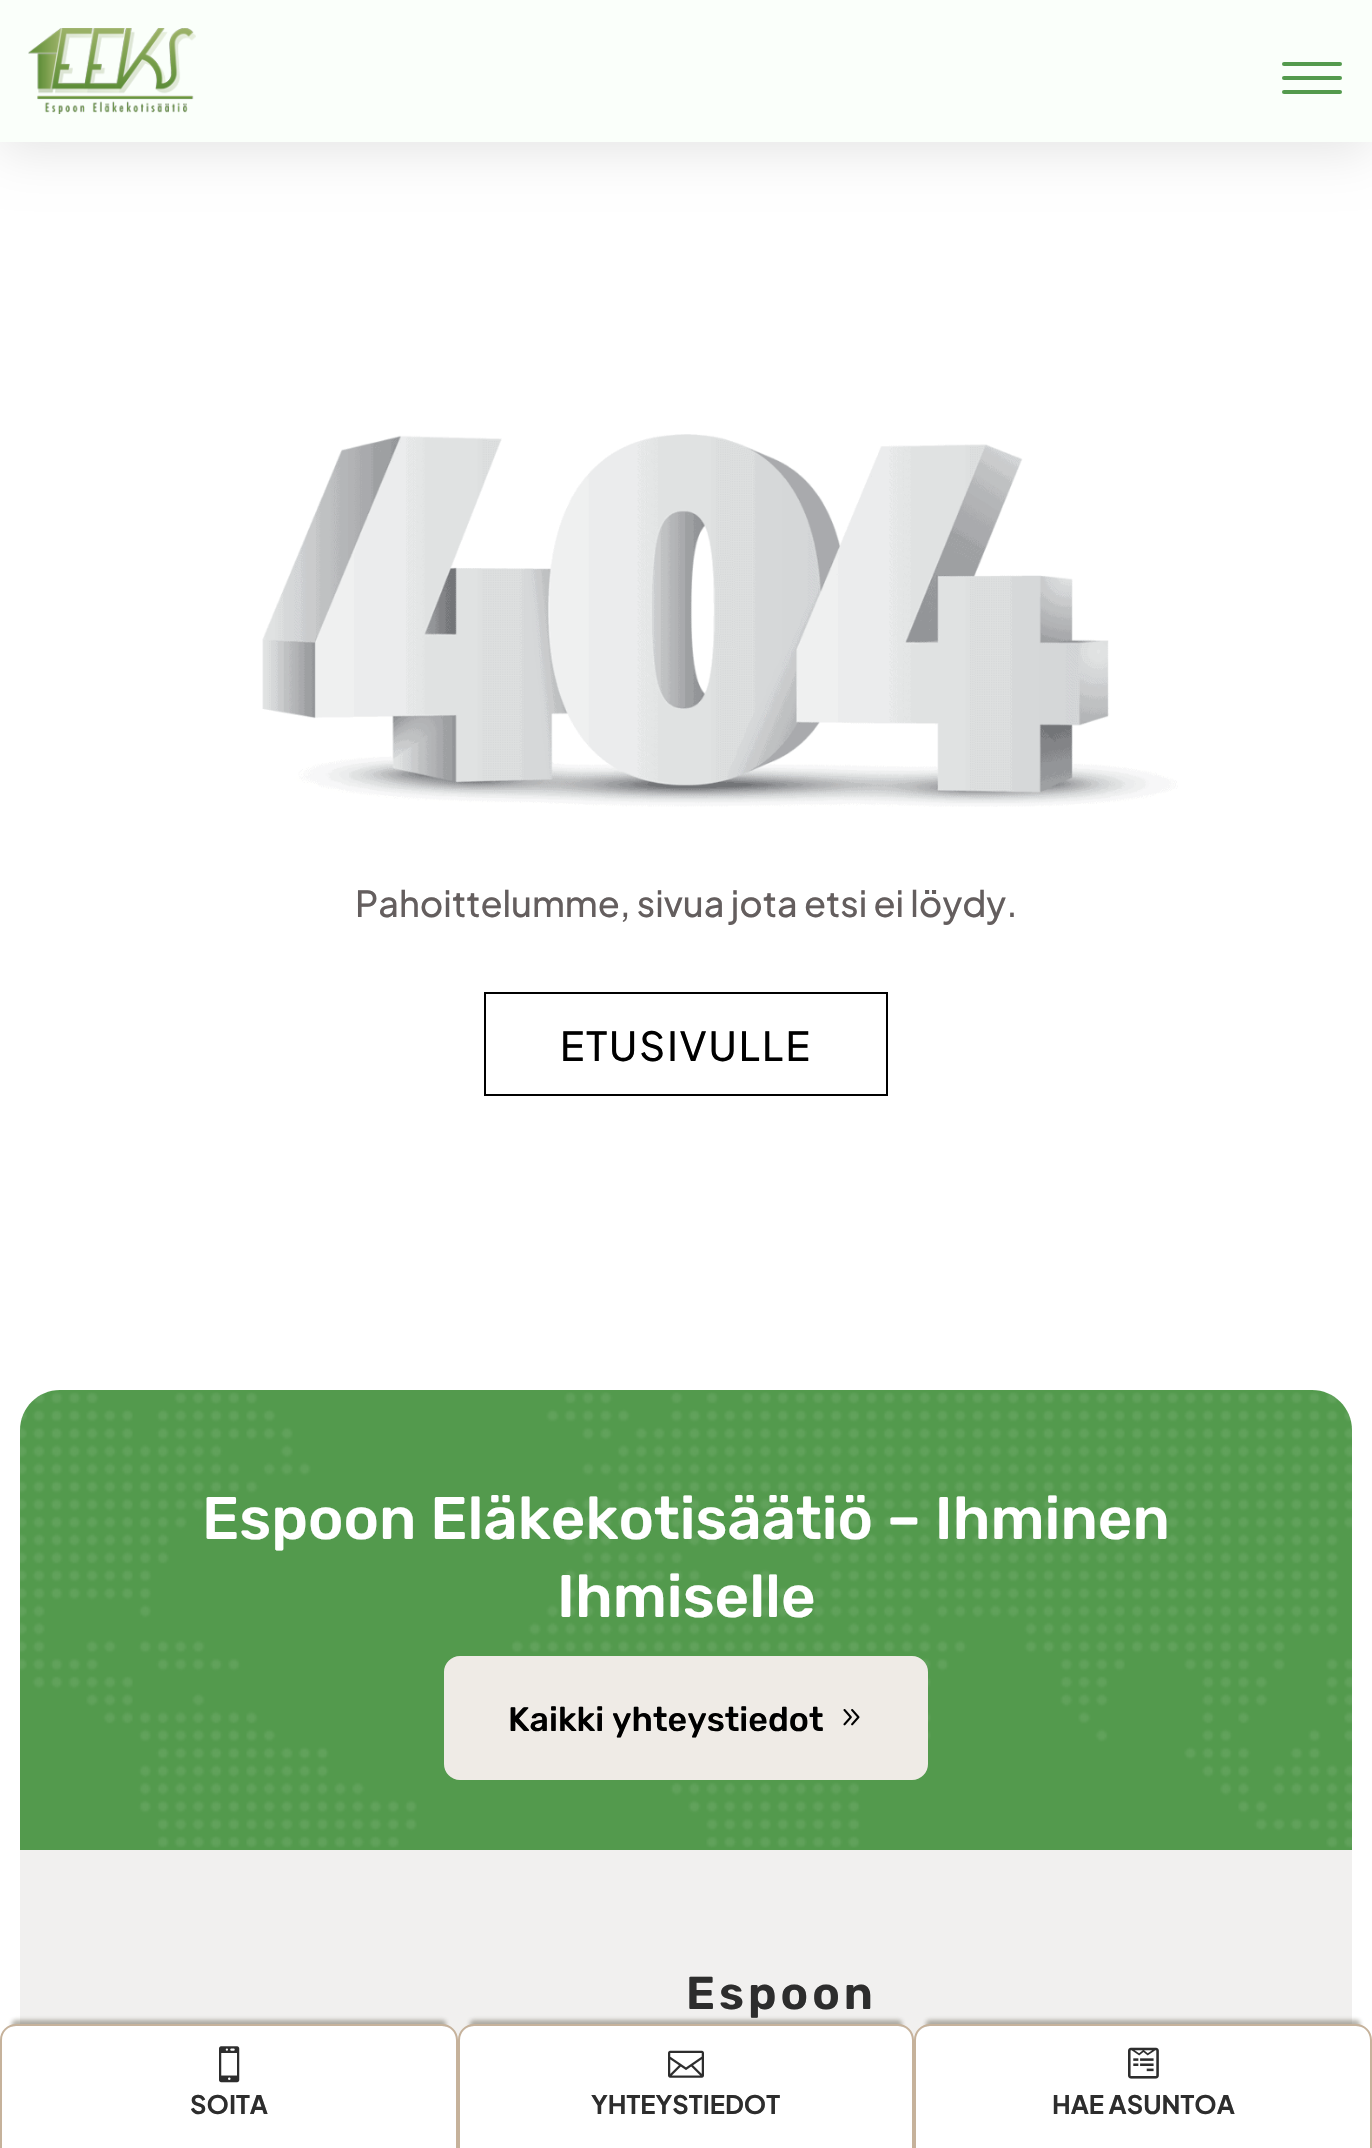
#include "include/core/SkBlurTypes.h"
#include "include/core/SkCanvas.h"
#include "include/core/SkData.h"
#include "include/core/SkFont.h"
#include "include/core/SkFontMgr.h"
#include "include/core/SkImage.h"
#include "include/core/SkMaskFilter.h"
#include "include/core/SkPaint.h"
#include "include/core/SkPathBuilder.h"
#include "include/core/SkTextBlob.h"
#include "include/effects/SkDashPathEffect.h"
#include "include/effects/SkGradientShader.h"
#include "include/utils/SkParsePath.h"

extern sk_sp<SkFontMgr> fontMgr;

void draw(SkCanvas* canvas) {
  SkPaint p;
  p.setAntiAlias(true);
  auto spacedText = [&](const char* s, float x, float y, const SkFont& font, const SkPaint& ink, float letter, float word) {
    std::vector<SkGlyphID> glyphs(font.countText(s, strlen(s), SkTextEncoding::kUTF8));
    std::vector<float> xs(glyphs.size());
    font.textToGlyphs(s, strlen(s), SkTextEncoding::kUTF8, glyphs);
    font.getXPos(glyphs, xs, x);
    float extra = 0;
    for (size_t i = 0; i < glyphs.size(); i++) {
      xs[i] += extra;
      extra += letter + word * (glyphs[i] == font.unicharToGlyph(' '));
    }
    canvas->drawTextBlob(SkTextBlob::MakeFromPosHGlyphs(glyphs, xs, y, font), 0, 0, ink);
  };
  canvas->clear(SK_ColorWHITE);
  p.setColor(SkColorSetARGB(26, 0, 0, 0));
  p.setMaskFilter(SkMaskFilter::MakeBlur(kNormal_SkBlurStyle, 25));
  canvas->drawRect(SkRect::MakeLTRB(0, 10, 1372, 152), p);
  p.setMaskFilter(nullptr);
  p.setColor(SkColorSetRGB(250, 255, 250));
  canvas->drawRect(SkRect::MakeLTRB(0, 0, 1372, 142), p);
  canvas->drawImageRect(SkImages::DeferredFromEncodedData(SkData::MakeFromFileName("images/1.png")), SkRect::MakeLTRB(28, 28, 196, 114), SkSamplingOptions());
  p.setColor(SkColorSetRGB(83, 154, 77));
  canvas->drawRoundRect(SkRect::MakeLTRB(1282, 76, 1342, 80), 2, 2, p);
  canvas->drawRoundRect(SkRect::MakeLTRB(1282, 62, 1342, 66), 2, 2, p);
  canvas->drawRoundRect(SkRect::MakeLTRB(1282, 90, 1342, 94), 2, 2, p);
  canvas->drawImageRect(SkImages::DeferredFromEncodedData(SkData::MakeFromFileName("images/2.png")), SkRect::MakeLTRB(262, 434, 1178, 807), SkSamplingOptions());
  p.setStyle(SkPaint::kStroke_Style);
  p.setStrokeWidth(2);
  p.setColor(SK_ColorBLACK);
  canvas->drawRect(SkRect::MakeLTRB(485, 993, 887, 1095), p);
  p.setStyle(SkPaint::kFill_Style);
  p.setColor(SkColorSetRGB(83, 154, 77));
  canvas->drawPath(SkPathBuilder().moveTo(60, 1390).lineTo(1312, 1390).cubicTo(1334, 1390, 1352, 1408, 1352, 1430).lineTo(1352, 1850).lineTo(20, 1850).lineTo(20, 1430).cubicTo(20, 1408, 38, 1390, 60, 1390).close().detach(), p);
  canvas->drawImageRect(SkImages::DeferredFromEncodedData(SkData::MakeFromFileName("images/3.png")), SkRect::MakeLTRB(20, 1392, 1352, 1848), SkSamplingOptions());
  p.setColor(SkColorSetRGB(239, 235, 230));
  canvas->drawRoundRect(SkRect::MakeLTRB(446, 1658, 926, 1778), 14, 14, p);
  p.setStyle(SkPaint::kStroke_Style);
  p.setStrokeWidth(4);
  canvas->drawRoundRect(SkRect::MakeLTRB(446, 1658, 926, 1778), 14, 14, p);
  canvas->drawImageRect(SkImages::DeferredFromEncodedData(SkData::MakeFromFileName("images/4.png")), SkRect::MakeLTRB(843, 1709, 860, 1726), SkSamplingOptions());
  p.setStyle(SkPaint::kFill_Style);
  p.setColor(SkColorSetRGB(241, 240, 239));
  canvas->drawRect(SkRect::MakeLTRB(20, 1850, 1352, 2040), p);
  p.setColor(SkColorSetARGB(120, 96, 91, 75));
  p.setMaskFilter(SkMaskFilter::MakeBlur(kNormal_SkBlurStyle, 2));
  canvas->drawRoundRect(SkRect::MakeLTRB(12, 2020, 446, 2120), 4, 4, p);
  p.setMaskFilter(nullptr);
  p.setColor(SK_ColorWHITE);
  canvas->drawPath(SkPathBuilder().moveTo(16, 2026).lineTo(442, 2026).cubicTo(449.5f, 2026, 456, 2032.5f, 456, 2040).lineTo(456, 2148).lineTo(2, 2148).lineTo(2, 2040).cubicTo(2, 2032.5f, 8.5f, 2026, 16, 2026).close().detach(), p);
  p.setColor(SkColorSetRGB(198, 178, 155));
  canvas->drawPath(SkPathBuilder(SkPathFillType::kEvenOdd).moveTo(16, 2024).lineTo(442, 2024).cubicTo(451, 2024, 458, 2031, 458, 2040).lineTo(458, 2148).lineTo(0, 2148).lineTo(0, 2040).cubicTo(0, 2031, 7, 2024, 16, 2024).close().moveTo(16, 2026).lineTo(442, 2026).cubicTo(450, 2026, 456, 2032, 456, 2040).lineTo(456, 2148).lineTo(2, 2148).lineTo(2, 2040).cubicTo(2, 2032, 8, 2026, 16, 2026).close().detach(), p);
  canvas->drawImageRect(SkImages::DeferredFromEncodedData(SkData::MakeFromFileName("images/5.png")), SkRect::MakeLTRB(219, 2046, 240, 2083), SkSamplingOptions());
  p.setColor(SkColorSetARGB(120, 96, 91, 75));
  p.setMaskFilter(SkMaskFilter::MakeBlur(kNormal_SkBlurStyle, 2));
  canvas->drawRoundRect(SkRect::MakeLTRB(470, 2020, 902, 2120), 4, 4, p);
  p.setMaskFilter(nullptr);
  p.setColor(SK_ColorWHITE);
  canvas->drawPath(SkPathBuilder().moveTo(474, 2026).lineTo(898, 2026).cubicTo(905.5f, 2026, 912, 2032.5f, 912, 2040).lineTo(912, 2148).lineTo(460, 2148).lineTo(460, 2040).cubicTo(460, 2032.5f, 466.5f, 2026, 474, 2026).close().detach(), p);
  p.setColor(SkColorSetRGB(198, 178, 155));
  canvas->drawPath(SkPathBuilder(SkPathFillType::kEvenOdd).moveTo(474, 2024).lineTo(898, 2024).cubicTo(907, 2024, 914, 2031, 914, 2040).lineTo(914, 2148).lineTo(458, 2148).lineTo(458, 2040).cubicTo(458, 2031, 465, 2024, 474, 2024).close().moveTo(474, 2026).lineTo(898, 2026).cubicTo(906, 2026, 912, 2032, 912, 2040).lineTo(912, 2148).lineTo(460, 2148).lineTo(460, 2040).cubicTo(460, 2032, 466, 2026, 474, 2026).close().detach(), p);
  canvas->drawImageRect(SkImages::DeferredFromEncodedData(SkData::MakeFromFileName("images/6.png")), SkRect::MakeLTRB(668, 2050, 704, 2078), SkSamplingOptions());
  p.setColor(SkColorSetARGB(120, 96, 91, 75));
  p.setMaskFilter(SkMaskFilter::MakeBlur(kNormal_SkBlurStyle, 2));
  canvas->drawRoundRect(SkRect::MakeLTRB(926, 2020, 1360, 2120), 4, 4, p);
  p.setMaskFilter(nullptr);
  p.setColor(SK_ColorWHITE);
  canvas->drawPath(SkPathBuilder().moveTo(930, 2026).lineTo(1356, 2026).cubicTo(1363.5f, 2026, 1370, 2032.5f, 1370, 2040).lineTo(1370, 2148).lineTo(916, 2148).lineTo(916, 2040).cubicTo(916, 2032.5f, 922.5f, 2026, 930, 2026).close().detach(), p);
  p.setColor(SkColorSetRGB(198, 178, 155));
  canvas->drawPath(SkPathBuilder(SkPathFillType::kEvenOdd).moveTo(930, 2024).lineTo(1356, 2024).cubicTo(1365, 2024, 1372, 2031, 1372, 2040).lineTo(1372, 2148).lineTo(914, 2148).lineTo(914, 2040).cubicTo(914, 2031, 921, 2024, 930, 2024).close().moveTo(930, 2026).lineTo(1356, 2026).cubicTo(1364, 2026, 1370, 2032, 1370, 2040).lineTo(1370, 2148).lineTo(916, 2148).lineTo(916, 2040).cubicTo(916, 2032, 922, 2026, 930, 2026).close().detach(), p);
  canvas->drawImageRect(SkImages::DeferredFromEncodedData(SkData::MakeFromFileName("images/7.png")), SkRect::MakeLTRB(1128, 2047, 1159, 2079), SkSamplingOptions());
  SkFont font1(fontMgr->matchFamilyStyle("Plus Jakarta Sans", SkFontStyle(500, SkFontStyle::kNormal_Width, SkFontStyle::kUpright_Slant)), 36);
  font1.setSubpixel(true);
  p.setColor(SkColorSetRGB(100, 94, 94));
  canvas->drawString("Pahoittelumme, sivua jota etsi ei löydy.", 355, 917, font1, p);
  SkFont font2(fontMgr->matchFamilyStyle("Plus Jakarta Sans", SkFontStyle(500, SkFontStyle::kNormal_Width, SkFontStyle::kUpright_Slant)), 40);
  font2.setSubpixel(true);
  p.setColor(SK_ColorBLACK);
  spacedText("ETUSIVULLE", 560, 1061, font2, p, 2, 0);
  SkFont font3(fontMgr->matchFamilyStyle("Rubik", SkFontStyle(500, SkFontStyle::kNormal_Width, SkFontStyle::kUpright_Slant)), 60);
  font3.setSubpixel(true);
  p.setColor(SK_ColorWHITE);
  canvas->drawString("Espoon Eläkekotisäätiö – Ihminen", 202, 1539, font3, p);
  canvas->drawString("Ihmiselle", 557, 1617, font3, p);
  SkFont font4(fontMgr->matchFamilyStyle("Rubik", SkFontStyle(500, SkFontStyle::kNormal_Width, SkFontStyle::kUpright_Slant)), 34);
  font4.setSubpixel(true);
  p.setColor(SK_ColorBLACK);
  canvas->drawString("Kaikki yhteystiedot", 508, 1731, font4, p);
  SkFont font5(fontMgr->matchFamilyStyle("Rubik", SkFontStyle(600, SkFontStyle::kNormal_Width, SkFontStyle::kUpright_Slant)), 46);
  font5.setSubpixel(true);
  p.setColor(SkColorSetRGB(45, 45, 45));
  spacedText("Espoon", 686, 2009, font5, p, 4, 0);
  SkFont font6(fontMgr->matchFamilyStyle("Plus Jakarta Sans", SkFontStyle::Bold()), 25.5f);
  font6.setSubpixel(true);
  canvas->drawString("SOITA", 190, 2114, font6, p);
  canvas->drawString("YHTEYSTIEDOT", 591, 2114, font6, p);
  canvas->drawString("HAE ASUNTOA", 1052, 2114, font6, p);
}
